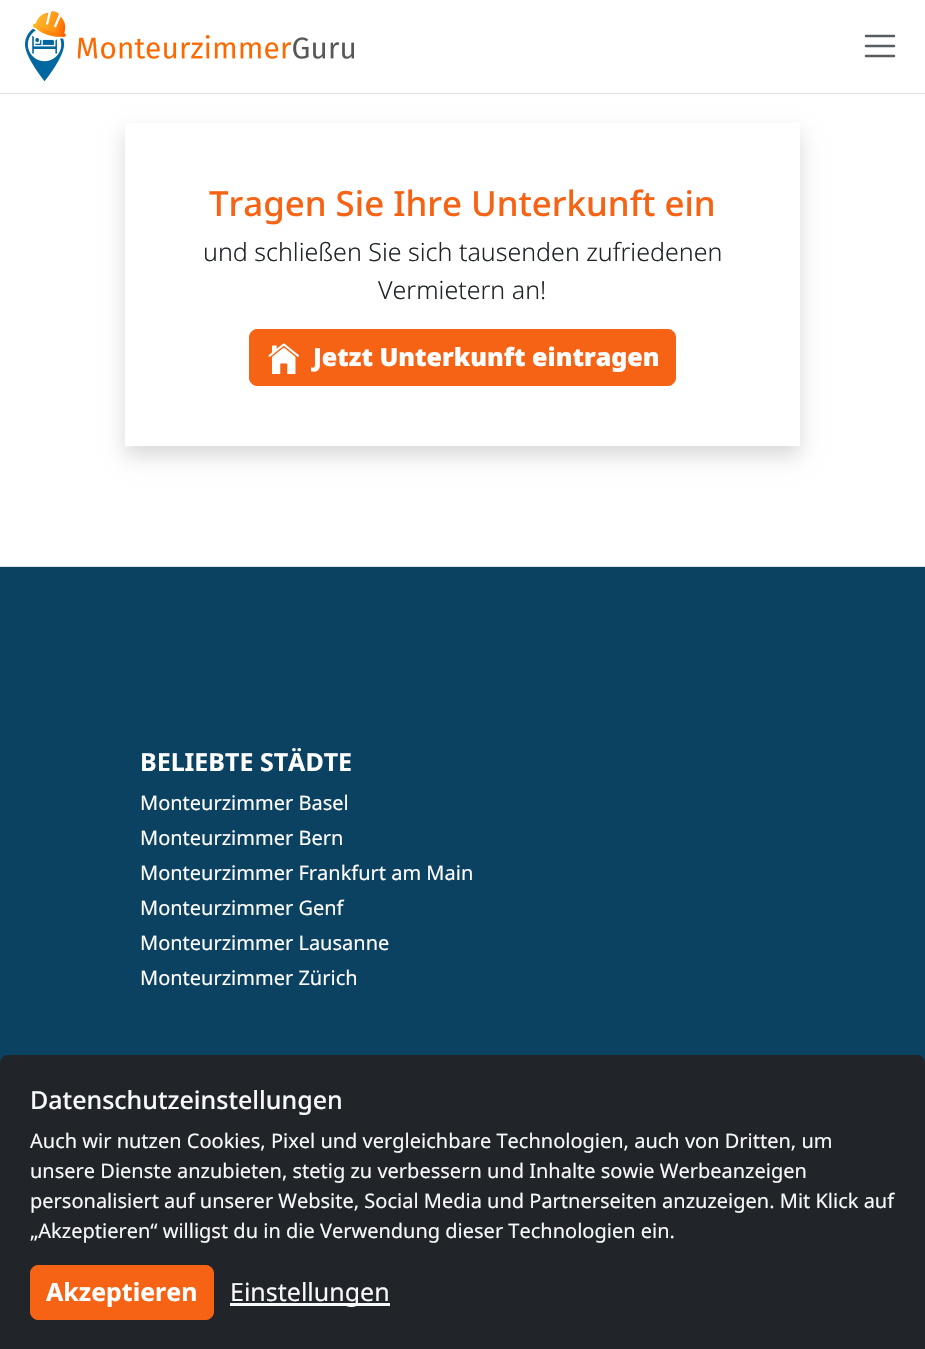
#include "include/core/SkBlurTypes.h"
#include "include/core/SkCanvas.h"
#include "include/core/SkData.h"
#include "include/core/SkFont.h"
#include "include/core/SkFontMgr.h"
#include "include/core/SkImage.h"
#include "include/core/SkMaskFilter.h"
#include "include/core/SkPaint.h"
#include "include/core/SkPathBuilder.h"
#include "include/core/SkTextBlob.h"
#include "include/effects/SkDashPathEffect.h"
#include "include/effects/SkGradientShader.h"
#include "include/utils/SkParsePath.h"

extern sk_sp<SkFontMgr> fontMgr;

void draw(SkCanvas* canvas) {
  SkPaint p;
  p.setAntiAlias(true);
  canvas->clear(SK_ColorWHITE);
  p.setColor(SkColorSetRGB(222, 226, 230));
  canvas->drawRect(SkRect::MakeLTRB(0, 93, 925, 94), p);
  canvas->drawImageRect(SkImages::DeferredFromEncodedData(SkData::MakeFromFileName("images/1.png")), SkRect::MakeLTRB(25, 11, 66, 81), SkSamplingOptions());
  canvas->drawImageRect(SkImages::DeferredFromEncodedData(SkData::MakeFromFileName("images/2.png")), SkRect::MakeLTRB(78, 35, 354, 59), SkSamplingOptions());
  p.setStyle(SkPaint::kStroke_Style);
  p.setStrokeWidth(2.5f);
  p.setStrokeCap(SkPaint::kRound_Cap);
  p.setColor(SkColorSetRGB(89, 92, 95));
  canvas->drawPath(SkPathBuilder().moveTo(866, 36).lineTo(894, 36).moveTo(866, 46).lineTo(894, 46).moveTo(866, 56).lineTo(894, 56).detach(), p);
  canvas->save();
  canvas->clipPath(SkPathBuilder(SkPathFillType::kEvenOdd).moveTo(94, 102).lineTo(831, 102).lineTo(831, 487).lineTo(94, 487).close().moveTo(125, 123).lineTo(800, 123).lineTo(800, 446).lineTo(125, 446).close().detach(), true);
  p.setStyle(SkPaint::kFill_Style);
  p.setColor(SkColorSetARGB(38, 0, 0, 0));
  p.setMaskFilter(SkMaskFilter::MakeBlur(kNormal_SkBlurStyle, 10));
  canvas->drawRect(SkRect::MakeLTRB(125, 133, 800, 456), p);
  p.setMaskFilter(nullptr);
  canvas->restore();
  p.setColor(SkColorSetRGB(247, 99, 20));
  canvas->drawRoundRect(SkRect::MakeLTRB(249.5f, 329.5f, 675.5f, 385.5f), 7.5f, 7.5f, p);
  p.setStyle(SkPaint::kStroke_Style);
  p.setStrokeWidth(1);
  p.setStrokeCap(SkPaint::kButt_Cap);
  canvas->drawRoundRect(SkRect::MakeLTRB(249.5f, 329.5f, 675.5f, 385.5f), 7.5f, 7.5f, p);
  canvas->drawImageRect(SkImages::DeferredFromEncodedData(SkData::MakeFromFileName("images/3.png")), SkRect::MakeLTRB(268, 343, 299, 374), SkSamplingOptions());
  p.setStyle(SkPaint::kFill_Style);
  p.setColor(SkColorSetRGB(11, 66, 97));
  canvas->drawRect(SkRect::MakeLTRB(0, 567, 925, 1063), p);
  p.setColor(SkColorSetRGB(222, 226, 230));
  canvas->drawRect(SkRect::MakeLTRB(0, 566, 925, 567), p);
  p.setColor(SkColorSetRGB(33, 37, 41));
  canvas->drawPath(SkPathBuilder().moveTo(8, 1055).lineTo(917, 1055).cubicTo(921.5f, 1055, 925, 1058.5f, 925, 1063).lineTo(925, 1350).lineTo(0, 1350).lineTo(0, 1063).cubicTo(0, 1058.5f, 3.5f, 1055, 8, 1055).close().detach(), p);
  p.setColor(SkColorSetRGB(247, 99, 20));
  canvas->drawRoundRect(SkRect::MakeLTRB(30.5f, 1265.5f, 213.5f, 1319.5f), 7.5f, 7.5f, p);
  p.setStyle(SkPaint::kStroke_Style);
  canvas->drawRoundRect(SkRect::MakeLTRB(30.5f, 1265.5f, 213.5f, 1319.5f), 7.5f, 7.5f, p);
  p.setStyle(SkPaint::kFill_Style);
  p.setColor(SkColorSetRGB(248, 249, 250));
  canvas->drawRect(SkRect::MakeLTRB(230, 1303, 390, 1306), p);
  SkFont font1(fontMgr->matchFamilyStyle("Noto Sans", SkFontStyle(500, SkFontStyle::kNormal_Width, SkFontStyle::kUpright_Slant)), 34.8f);
  font1.setSubpixel(true);
  p.setColor(SkColorSetRGB(247, 99, 20));
  canvas->drawString("Tragen Sie Ihre Unterkunft ein", 209, 216, font1, p);
  SkFont font2(fontMgr->matchFamilyStyle("Noto Sans", SkFontStyle(300, SkFontStyle::kNormal_Width, SkFontStyle::kUpright_Slant)), 25);
  font2.setSubpixel(true);
  p.setColor(SkColorSetRGB(33, 37, 41));
  canvas->drawString("und schließen Sie sich tausenden zufriedenen", 203, 261, font2, p);
  canvas->drawString("Vermietern an!", 378, 299, font2, p);
  SkFont font3(fontMgr->matchFamilyStyle("Noto Sans", SkFontStyle(900, SkFontStyle::kNormal_Width, SkFontStyle::kUpright_Slant)), 25);
  font3.setSubpixel(true);
  p.setColor(SK_ColorWHITE);
  canvas->drawString("Jetzt Unterkunft eintragen", 313, 366, font3, p);
  SkFont font4(fontMgr->matchFamilyStyle("Noto Sans", SkFontStyle::Bold()), 25);
  font4.setSubpixel(true);
  canvas->drawString("BELIEBTE STÄDTE", 140, 771, font4, p);
  SkFont font5(fontMgr->matchFamilyStyle("Noto Sans", SkFontStyle::Normal()), 20);
  font5.setSubpixel(true);
  canvas->drawString("Monteurzimmer Basel", 140, 810, font5, p);
  canvas->drawString("Monteurzimmer Bern", 140, 845, font5, p);
  canvas->drawString("Monteurzimmer Frankfurt am Main", 140, 880, font5, p);
  canvas->drawString("Monteurzimmer Genf", 140, 915, font5, p);
  canvas->drawString("Monteurzimmer Lausanne", 140, 950, font5, p);
  canvas->drawString("Monteurzimmer Zürich", 140, 985, font5, p);
  SkFont font6(fontMgr->matchFamilyStyle("Noto Sans", SkFontStyle(500, SkFontStyle::kNormal_Width, SkFontStyle::kUpright_Slant)), 25);
  font6.setSubpixel(true);
  p.setColor(SkColorSetRGB(248, 249, 250));
  canvas->drawString("Datenschutzeinstellungen", 30, 1109, font6, p);
  canvas->drawString("Auch wir nutzen Cookies, Pixel und vergleichbare Technologien, auch von Dritten, um", 30, 1148, font5, p);
  canvas->drawString("unsere Dienste anzubieten, stetig zu verbessern und Inhalte sowie Werbeanzeigen", 30, 1178, font5, p);
  canvas->drawString("personalisiert auf unserer Website, Social Media und Partnerseiten anzuzeigen. Mit Klick auf", 30, 1208, font5, p);
  canvas->drawString("„Akzeptieren“ willigst du in die Verwendung dieser Technologien ein.", 30, 1238, font5, p);
  p.setColor(SK_ColorWHITE);
  canvas->drawString("Akzeptieren", 46, 1301, font4, p);
  SkFont font7(fontMgr->matchFamilyStyle("Noto Sans", SkFontStyle::Normal()), 25);
  font7.setSubpixel(true);
  p.setColor(SkColorSetRGB(248, 249, 250));
  canvas->drawString("Einstellungen", 230, 1301, font7, p);
}
